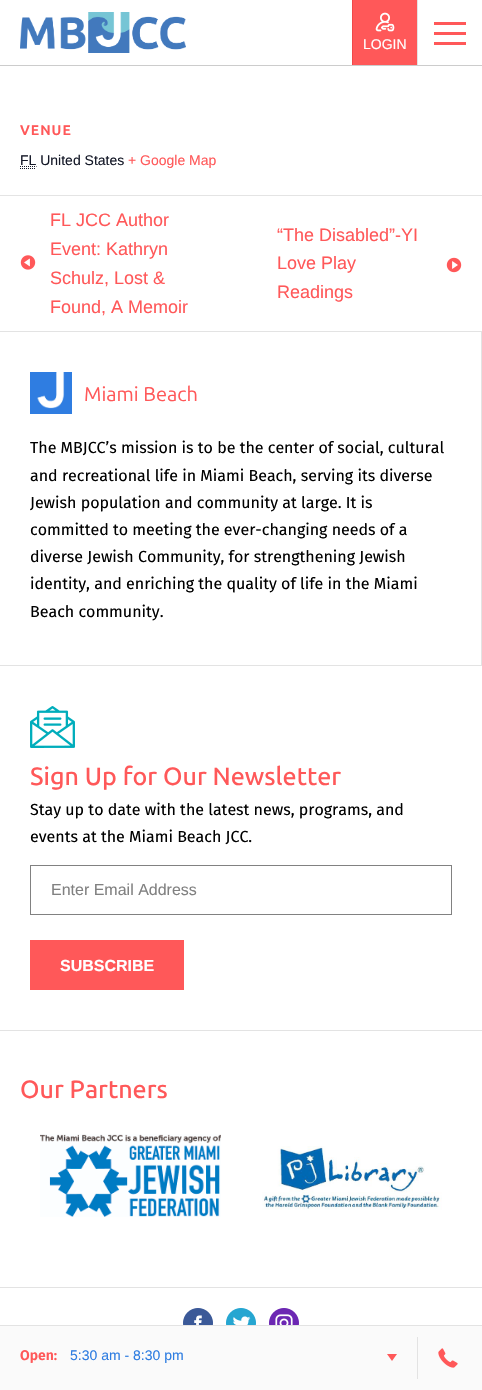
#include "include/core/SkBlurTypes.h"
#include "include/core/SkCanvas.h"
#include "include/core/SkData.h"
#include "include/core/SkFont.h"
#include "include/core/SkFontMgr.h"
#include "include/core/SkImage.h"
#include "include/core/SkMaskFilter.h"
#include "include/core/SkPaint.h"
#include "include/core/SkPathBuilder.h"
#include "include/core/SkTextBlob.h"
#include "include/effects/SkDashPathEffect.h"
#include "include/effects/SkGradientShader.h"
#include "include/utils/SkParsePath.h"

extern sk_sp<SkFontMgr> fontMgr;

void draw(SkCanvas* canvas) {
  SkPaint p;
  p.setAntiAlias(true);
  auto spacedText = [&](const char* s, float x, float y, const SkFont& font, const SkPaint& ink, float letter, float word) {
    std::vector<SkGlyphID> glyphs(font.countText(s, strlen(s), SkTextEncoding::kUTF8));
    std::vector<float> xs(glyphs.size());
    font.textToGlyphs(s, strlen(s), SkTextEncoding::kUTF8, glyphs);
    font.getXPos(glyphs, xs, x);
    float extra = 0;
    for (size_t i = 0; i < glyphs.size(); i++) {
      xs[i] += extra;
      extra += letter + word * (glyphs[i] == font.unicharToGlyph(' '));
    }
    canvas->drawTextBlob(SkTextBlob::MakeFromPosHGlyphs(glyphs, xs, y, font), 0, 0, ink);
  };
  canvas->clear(SK_ColorWHITE);
  canvas->drawImageRect(SkImages::DeferredFromEncodedData(SkData::MakeFromFileName("images/1.png")), SkRect::MakeLTRB(20, 12, 186, 53), SkSamplingOptions());
  p.setColor(SkColorSetRGB(255, 88, 89));
  canvas->drawRect(SkRect::MakeLTRB(353, 0, 417, 65), p);
  p.setColor(SkColorSetRGB(241, 72, 73));
  canvas->drawRect(SkRect::MakeLTRB(352, 0, 353, 65), p);
  canvas->drawImageRect(SkImages::DeferredFromEncodedData(SkData::MakeFromFileName("images/2.png")), SkRect::MakeLTRB(375, 12, 395, 32), SkSamplingOptions());
  p.setColor(SkColorSetRGB(227, 227, 227));
  canvas->drawRect(SkRect::MakeLTRB(417, 0, 418, 65), p);
  p.setColor(SkColorSetRGB(255, 88, 89));
  canvas->drawRect(SkRect::MakeLTRB(434, 22, 466, 25), p);
  canvas->drawRect(SkRect::MakeLTRB(434, 32, 466, 35), p);
  canvas->drawRect(SkRect::MakeLTRB(434, 42, 466, 45), p);
  p.setColor(SkColorSetRGB(204, 204, 204));
  canvas->drawRect(SkRect::MakeLTRB(0, 65, 482, 66), p);
  p.setStyle(SkPaint::kStroke_Style);
  p.setStrokeWidth(1);
  p.setColor(SkColorSetRGB(20, 24, 39));
  p.setPathEffect(SkDashPathEffect::Make({{1, 1}}, 0));
  canvas->drawPath(SkPathBuilder().moveTo(20, 168.5f).lineTo(36, 168.5f).moveTo(20, 166.5f).lineTo(36.5f, 166.5f).detach(), p);
  p.setPathEffect(nullptr);
  p.setStyle(SkPaint::kFill_Style);
  p.setColor(SkColorSetRGB(228, 228, 228));
  canvas->drawRect(SkRect::MakeLTRB(0, 195, 482, 196), p);
  p.setColor(SkColorSetRGB(227, 227, 227));
  canvas->drawRect(SkRect::MakeLTRB(0, 331, 482, 332), p);
  canvas->drawImageRect(SkImages::DeferredFromEncodedData(SkData::MakeFromFileName("images/3.png")), SkRect::MakeLTRB(20, 255, 36, 270), SkSamplingOptions());
  canvas->drawImageRect(SkImages::DeferredFromEncodedData(SkData::MakeFromFileName("images/4.png")), SkRect::MakeLTRB(446, 257, 462, 273), SkSamplingOptions());
  canvas->drawRect(SkRect::MakeLTRB(481, 332, 482, 666), p);
  canvas->drawRect(SkRect::MakeLTRB(0, 665, 482, 666), p);
  canvas->drawImageRect(SkImages::DeferredFromEncodedData(SkData::MakeFromFileName("images/5.png")), SkRect::MakeLTRB(30, 372, 72, 414), SkSamplingOptions());
  canvas->drawImageRect(SkImages::DeferredFromEncodedData(SkData::MakeFromFileName("images/6.png")), SkRect::MakeLTRB(30, 706, 75, 748), SkSamplingOptions());
  p.setStyle(SkPaint::kStroke_Style);
  p.setColor(SkColorSetRGB(129, 129, 129));
  canvas->drawRect(SkRect::MakeLTRB(30.5f, 865.5f, 451.5f, 914.5f), p);
  p.setStyle(SkPaint::kFill_Style);
  p.setColor(SkColorSetRGB(255, 88, 89));
  canvas->drawRect(SkRect::MakeLTRB(30, 940, 184, 990), p);
  p.setColor(SkColorSetRGB(227, 227, 227));
  canvas->drawRect(SkRect::MakeLTRB(0, 1030, 482, 1031), p);
  canvas->drawImageRect(SkImages::DeferredFromEncodedData(SkData::MakeFromFileName("images/7.png")), SkRect::MakeLTRB(40, 1134, 221, 1217), SkSamplingOptions());
  canvas->drawImageRect(SkImages::DeferredFromEncodedData(SkData::MakeFromFileName("images/8.png")), SkRect::MakeLTRB(262, 1146, 442, 1210), SkSamplingOptions());
  canvas->drawRect(SkRect::MakeLTRB(0, 1287, 482, 1288), p);
  canvas->drawImageRect(SkImages::DeferredFromEncodedData(SkData::MakeFromFileName("images/9.png")), SkRect::MakeLTRB(183, 1308, 213, 1325), SkSamplingOptions());
  canvas->drawImageRect(SkImages::DeferredFromEncodedData(SkData::MakeFromFileName("images/10.png")), SkRect::MakeLTRB(226, 1308, 256, 1325), SkSamplingOptions());
  canvas->drawImageRect(SkImages::DeferredFromEncodedData(SkData::MakeFromFileName("images/11.png")), SkRect::MakeLTRB(269, 1308, 299, 1325), SkSamplingOptions());
  p.setColor(SkColorSetRGB(250, 250, 250));
  canvas->drawRect(SkRect::MakeLTRB(0, 1326, 482, 1390), p);
  p.setColor(SkColorSetRGB(227, 227, 227));
  canvas->drawRect(SkRect::MakeLTRB(0, 1325, 482, 1326), p);
  canvas->drawRect(SkRect::MakeLTRB(417, 1337, 418, 1379), p);
  p.setColor(SkColorSetRGB(255, 88, 89));
  canvas->drawPath(SkPathBuilder().moveTo(387, 1354).lineTo(397, 1354).lineTo(392, 1361).close().detach(), p);
  canvas->drawImageRect(SkImages::DeferredFromEncodedData(SkData::MakeFromFileName("images/12.png")), SkRect::MakeLTRB(438, 1348, 458, 1368), SkSamplingOptions());
  SkFont font1(fontMgr->matchFamilyStyle("Liberation Sans", SkFontStyle::Normal()), 14);
  font1.setSubpixel(true);
  p.setColor(SK_ColorWHITE);
  canvas->drawString("LOGIN", 363, 49, font1, p);
  SkFont font2(fontMgr->matchFamilyStyle("Ubuntu", SkFontStyle::Bold()), 14);
  font2.setSubpixel(true);
  p.setColor(SkColorSetRGB(255, 88, 89));
  spacedText("VENUE", 20, 135, font2, p, 1, 0);
  p.setColor(SkColorSetRGB(20, 24, 39));
  canvas->drawString("FL United States", 20, 165, font1, p);
  p.setColor(SkColorSetRGB(255, 88, 89));
  canvas->drawString("+ Google Map", 128, 165, font1, p);
  SkFont font3(fontMgr->matchFamilyStyle("Liberation Sans", SkFontStyle::Normal()), 18);
  font3.setSubpixel(true);
  canvas->drawString("FL JCC Author", 50, 226, font3, p);
  canvas->drawString("Event: Kathryn", 50, 255, font3, p);
  canvas->drawString("Schulz, Lost &", 50, 284, font3, p);
  canvas->drawString("Found, A Memoir", 50, 313, font3, p);
  canvas->drawString("“The Disabled”-YI", 277, 241, font3, p);
  canvas->drawString("Love Play", 277, 269, font3, p);
  canvas->drawString("Readings", 277, 298, font3, p);
  SkFont font4(fontMgr->matchFamilyStyle("Ubuntu", SkFontStyle::Normal()), 20);
  font4.setSubpixel(true);
  canvas->drawString("Miami Beach", 84, 401, font4, p);
  SkFont font5(fontMgr->matchFamilyStyle("Fira Sans", SkFontStyle::Normal()), 16);
  font5.setSubpixel(true);
  p.setColor(SK_ColorBLACK);
  canvas->drawString("The MBJCC’s mission is to be the center of social, cultural", 30, 453, font5, p);
  canvas->drawString("and recreational life in Miami Beach, serving its diverse", 30, 481, font5, p);
  canvas->drawString("Jewish population and community at large. It is", 30, 508, font5, p);
  canvas->drawString("committed to meeting the ever-changing needs of a", 30, 535, font5, p);
  canvas->drawString("diverse Jewish Community, for strengthening Jewish", 30, 562, font5, p);
  canvas->drawString("identity, and enriching the quality of life in the Miami", 30, 589, font5, p);
  canvas->drawString("Beach community.", 30, 617, font5, p);
  SkFont font6(fontMgr->matchFamilyStyle("Ubuntu", SkFontStyle(500, SkFontStyle::kNormal_Width, SkFontStyle::kUpright_Slant)), 25);
  font6.setSubpixel(true);
  p.setColor(SkColorSetRGB(255, 88, 89));
  canvas->drawString("Sign Up for Our Newsletter", 30, 785, font6, p);
  p.setColor(SK_ColorBLACK);
  canvas->drawString("Stay up to date with the latest news, programs, and", 30, 815, font5, p);
  canvas->drawString("events at the Miami Beach JCC.", 30, 842, font5, p);
  SkFont font7(fontMgr->matchFamilyStyle("Liberation Sans", SkFontStyle::Normal()), 16);
  font7.setSubpixel(true);
  p.setColor(SkColorSetRGB(129, 129, 129));
  canvas->drawString("Enter Email Address", 51, 895, font7, p);
  SkFont font8(fontMgr->matchFamilyStyle("Liberation Sans", SkFontStyle::Bold()), 16);
  font8.setSubpixel(true);
  p.setColor(SK_ColorWHITE);
  canvas->drawString("SUBSCRIBE", 60, 971, font8, p);
  p.setColor(SkColorSetRGB(255, 88, 89));
  canvas->drawString("Our Partners", 20, 1098, font6, p);
  SkFont font9(fontMgr->matchFamilyStyle("Fira Sans", SkFontStyle(600, SkFontStyle::kNormal_Width, SkFontStyle::kUpright_Slant)), 14);
  font9.setSubpixel(true);
  canvas->drawString("Open:", 20, 1360, font9, p);
  p.setColor(SkColorSetRGB(46, 125, 225));
  canvas->drawString("5:30 am - 8:30 pm", 70, 1360, font1, p);
}
